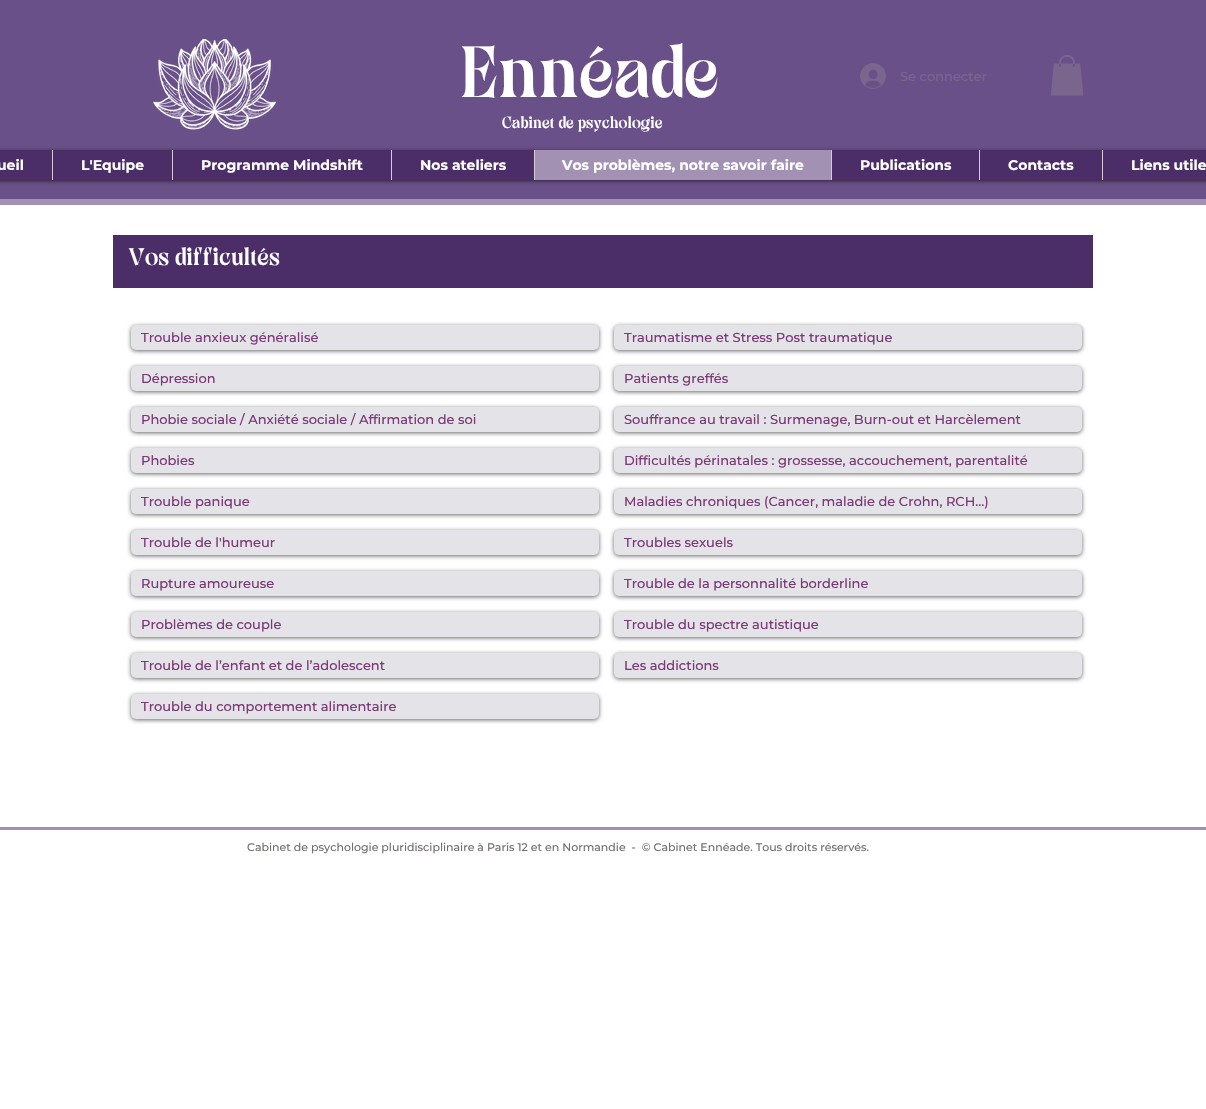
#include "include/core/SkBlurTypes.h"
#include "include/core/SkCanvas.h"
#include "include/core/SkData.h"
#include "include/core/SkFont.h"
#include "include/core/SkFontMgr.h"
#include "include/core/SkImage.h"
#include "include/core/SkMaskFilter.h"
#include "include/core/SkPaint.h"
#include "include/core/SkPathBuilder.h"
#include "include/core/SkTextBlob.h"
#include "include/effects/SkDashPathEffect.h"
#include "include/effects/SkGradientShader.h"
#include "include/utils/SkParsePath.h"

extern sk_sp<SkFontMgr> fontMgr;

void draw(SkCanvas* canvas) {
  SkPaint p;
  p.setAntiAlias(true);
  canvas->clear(SK_ColorWHITE);
  p.setColor(SkColorSetRGB(106, 80, 136));
  canvas->drawRect(SkRect::MakeLTRB(0, 0, 1206, 199), p);
  p.setColor(SkColorSetRGB(163, 145, 179));
  canvas->drawRect(SkRect::MakeLTRB(0, 199, 1206, 205), p);
  canvas->drawImageRect(SkImages::DeferredFromEncodedData(SkData::MakeFromFileName("images/1.png")), SkRect::MakeLTRB(153, 39, 277, 130), SkSamplingOptions());
  canvas->drawImageRect(SkImages::DeferredFromEncodedData(SkData::MakeFromFileName("images/2.png")), SkRect::MakeLTRB(860, 63, 886, 89), SkSamplingOptions());
  canvas->drawImageRect(SkImages::DeferredFromEncodedData(SkData::MakeFromFileName("images/3.png")), SkRect::MakeLTRB(1051, 55, 1083, 96), SkSamplingOptions());
  p.setColor(SkColorSetARGB(153, 0, 0, 0));
  p.setMaskFilter(SkMaskFilter::MakeBlur(kNormal_SkBlurStyle, 2));
  canvas->drawRoundRect(SkRect::MakeLTRB(-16, 151, 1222, 181), 10, 10, p);
  p.setMaskFilter(nullptr);
  p.setColor(SkColorSetRGB(75, 45, 103));
  canvas->drawRect(SkRect::MakeLTRB(0, 150, 1206, 180), p);
  p.setColor(SkColorSetRGB(218, 201, 218));
  canvas->drawRect(SkRect::MakeLTRB(52, 150, 53, 180), p);
  canvas->drawRect(SkRect::MakeLTRB(172, 150, 173, 180), p);
  canvas->drawRect(SkRect::MakeLTRB(391, 150, 392, 180), p);
  p.setColor(SkColorSetRGB(163, 145, 179));
  canvas->drawRect(SkRect::MakeLTRB(535, 150, 831, 180), p);
  p.setColor(SkColorSetRGB(218, 201, 218));
  canvas->drawRect(SkRect::MakeLTRB(534, 150, 535, 180), p);
  canvas->drawRect(SkRect::MakeLTRB(831, 150, 832, 180), p);
  canvas->drawRect(SkRect::MakeLTRB(979, 150, 980, 180), p);
  canvas->drawRect(SkRect::MakeLTRB(1102, 150, 1103, 180), p);
  p.setColor(SkColorSetRGB(75, 45, 103));
  canvas->drawRect(SkRect::MakeLTRB(113, 235, 1093, 288), p);
  p.setColor(SkColorSetARGB(153, 0, 0, 0));
  p.setMaskFilter(SkMaskFilter::MakeBlur(kNormal_SkBlurStyle, 2));
  canvas->drawRoundRect(SkRect::MakeLTRB(131, 326, 599, 351), 5, 5, p);
  p.setMaskFilter(nullptr);
  p.setColor(SkColorSetRGB(227, 227, 232));
  canvas->drawRoundRect(SkRect::MakeLTRB(131, 325, 599, 350), 5, 5, p);
  p.setColor(SkColorSetARGB(153, 0, 0, 0));
  p.setMaskFilter(SkMaskFilter::MakeBlur(kNormal_SkBlurStyle, 2));
  canvas->drawRoundRect(SkRect::MakeLTRB(614, 326, 1082, 351), 5, 5, p);
  p.setMaskFilter(nullptr);
  p.setColor(SkColorSetRGB(227, 227, 232));
  canvas->drawRoundRect(SkRect::MakeLTRB(614, 325, 1082, 350), 5, 5, p);
  p.setColor(SkColorSetARGB(153, 0, 0, 0));
  p.setMaskFilter(SkMaskFilter::MakeBlur(kNormal_SkBlurStyle, 2));
  canvas->drawRoundRect(SkRect::MakeLTRB(131, 367, 599, 392), 5, 5, p);
  p.setMaskFilter(nullptr);
  p.setColor(SkColorSetRGB(227, 227, 232));
  canvas->drawRoundRect(SkRect::MakeLTRB(131, 366, 599, 391), 5, 5, p);
  p.setColor(SkColorSetARGB(153, 0, 0, 0));
  p.setMaskFilter(SkMaskFilter::MakeBlur(kNormal_SkBlurStyle, 2));
  canvas->drawRoundRect(SkRect::MakeLTRB(614, 367, 1082, 392), 5, 5, p);
  p.setMaskFilter(nullptr);
  p.setColor(SkColorSetRGB(227, 227, 232));
  canvas->drawRoundRect(SkRect::MakeLTRB(614, 366, 1082, 391), 5, 5, p);
  p.setColor(SkColorSetARGB(153, 0, 0, 0));
  p.setMaskFilter(SkMaskFilter::MakeBlur(kNormal_SkBlurStyle, 2));
  canvas->drawRoundRect(SkRect::MakeLTRB(131, 408, 599, 433), 5, 5, p);
  p.setMaskFilter(nullptr);
  p.setColor(SkColorSetRGB(227, 227, 232));
  canvas->drawRoundRect(SkRect::MakeLTRB(131, 407, 599, 432), 5, 5, p);
  p.setColor(SkColorSetARGB(153, 0, 0, 0));
  p.setMaskFilter(SkMaskFilter::MakeBlur(kNormal_SkBlurStyle, 2));
  canvas->drawRoundRect(SkRect::MakeLTRB(614, 408, 1082, 433), 5, 5, p);
  p.setMaskFilter(nullptr);
  p.setColor(SkColorSetRGB(227, 227, 232));
  canvas->drawRoundRect(SkRect::MakeLTRB(614, 407, 1082, 432), 5, 5, p);
  p.setColor(SkColorSetARGB(153, 0, 0, 0));
  p.setMaskFilter(SkMaskFilter::MakeBlur(kNormal_SkBlurStyle, 2));
  canvas->drawRoundRect(SkRect::MakeLTRB(131, 449, 599, 474), 5, 5, p);
  p.setMaskFilter(nullptr);
  p.setColor(SkColorSetRGB(227, 227, 232));
  canvas->drawRoundRect(SkRect::MakeLTRB(131, 448, 599, 473), 5, 5, p);
  p.setColor(SkColorSetARGB(153, 0, 0, 0));
  p.setMaskFilter(SkMaskFilter::MakeBlur(kNormal_SkBlurStyle, 2));
  canvas->drawRoundRect(SkRect::MakeLTRB(614, 449, 1082, 474), 5, 5, p);
  p.setMaskFilter(nullptr);
  p.setColor(SkColorSetRGB(227, 227, 232));
  canvas->drawRoundRect(SkRect::MakeLTRB(614, 448, 1082, 473), 5, 5, p);
  p.setColor(SkColorSetARGB(153, 0, 0, 0));
  p.setMaskFilter(SkMaskFilter::MakeBlur(kNormal_SkBlurStyle, 2));
  canvas->drawRoundRect(SkRect::MakeLTRB(131, 490, 599, 515), 5, 5, p);
  p.setMaskFilter(nullptr);
  p.setColor(SkColorSetRGB(227, 227, 232));
  canvas->drawRoundRect(SkRect::MakeLTRB(131, 489, 599, 514), 5, 5, p);
  p.setColor(SkColorSetARGB(153, 0, 0, 0));
  p.setMaskFilter(SkMaskFilter::MakeBlur(kNormal_SkBlurStyle, 2));
  canvas->drawRoundRect(SkRect::MakeLTRB(614, 490, 1082, 515), 5, 5, p);
  p.setMaskFilter(nullptr);
  p.setColor(SkColorSetRGB(227, 227, 232));
  canvas->drawRoundRect(SkRect::MakeLTRB(614, 489, 1082, 514), 5, 5, p);
  p.setColor(SkColorSetARGB(153, 0, 0, 0));
  p.setMaskFilter(SkMaskFilter::MakeBlur(kNormal_SkBlurStyle, 2));
  canvas->drawRoundRect(SkRect::MakeLTRB(131, 531, 599, 556), 5, 5, p);
  p.setMaskFilter(nullptr);
  p.setColor(SkColorSetRGB(227, 227, 232));
  canvas->drawRoundRect(SkRect::MakeLTRB(131, 530, 599, 555), 5, 5, p);
  p.setColor(SkColorSetARGB(153, 0, 0, 0));
  p.setMaskFilter(SkMaskFilter::MakeBlur(kNormal_SkBlurStyle, 2));
  canvas->drawRoundRect(SkRect::MakeLTRB(614, 531, 1082, 556), 5, 5, p);
  p.setMaskFilter(nullptr);
  p.setColor(SkColorSetRGB(227, 227, 232));
  canvas->drawRoundRect(SkRect::MakeLTRB(614, 530, 1082, 555), 5, 5, p);
  p.setColor(SkColorSetARGB(153, 0, 0, 0));
  p.setMaskFilter(SkMaskFilter::MakeBlur(kNormal_SkBlurStyle, 2));
  canvas->drawRoundRect(SkRect::MakeLTRB(131, 572, 599, 597), 5, 5, p);
  p.setMaskFilter(nullptr);
  p.setColor(SkColorSetRGB(227, 227, 232));
  canvas->drawRoundRect(SkRect::MakeLTRB(131, 571, 599, 596), 5, 5, p);
  p.setColor(SkColorSetARGB(153, 0, 0, 0));
  p.setMaskFilter(SkMaskFilter::MakeBlur(kNormal_SkBlurStyle, 2));
  canvas->drawRoundRect(SkRect::MakeLTRB(614, 572, 1082, 597), 5, 5, p);
  p.setMaskFilter(nullptr);
  p.setColor(SkColorSetRGB(227, 227, 232));
  canvas->drawRoundRect(SkRect::MakeLTRB(614, 571, 1082, 596), 5, 5, p);
  p.setColor(SkColorSetARGB(153, 0, 0, 0));
  p.setMaskFilter(SkMaskFilter::MakeBlur(kNormal_SkBlurStyle, 2));
  canvas->drawRoundRect(SkRect::MakeLTRB(131, 613, 599, 638), 5, 5, p);
  p.setMaskFilter(nullptr);
  p.setColor(SkColorSetRGB(227, 227, 232));
  canvas->drawRoundRect(SkRect::MakeLTRB(131, 612, 599, 637), 5, 5, p);
  p.setColor(SkColorSetARGB(153, 0, 0, 0));
  p.setMaskFilter(SkMaskFilter::MakeBlur(kNormal_SkBlurStyle, 2));
  canvas->drawRoundRect(SkRect::MakeLTRB(614, 613, 1082, 638), 5, 5, p);
  p.setMaskFilter(nullptr);
  p.setColor(SkColorSetRGB(227, 227, 232));
  canvas->drawRoundRect(SkRect::MakeLTRB(614, 612, 1082, 637), 5, 5, p);
  p.setColor(SkColorSetARGB(153, 0, 0, 0));
  p.setMaskFilter(SkMaskFilter::MakeBlur(kNormal_SkBlurStyle, 2));
  canvas->drawRoundRect(SkRect::MakeLTRB(131, 654, 599, 679), 5, 5, p);
  p.setMaskFilter(nullptr);
  p.setColor(SkColorSetRGB(227, 227, 232));
  canvas->drawRoundRect(SkRect::MakeLTRB(131, 653, 599, 678), 5, 5, p);
  p.setColor(SkColorSetARGB(153, 0, 0, 0));
  p.setMaskFilter(SkMaskFilter::MakeBlur(kNormal_SkBlurStyle, 2));
  canvas->drawRoundRect(SkRect::MakeLTRB(614, 654, 1082, 679), 5, 5, p);
  p.setMaskFilter(nullptr);
  p.setColor(SkColorSetRGB(227, 227, 232));
  canvas->drawRoundRect(SkRect::MakeLTRB(614, 653, 1082, 678), 5, 5, p);
  p.setColor(SkColorSetARGB(153, 0, 0, 0));
  p.setMaskFilter(SkMaskFilter::MakeBlur(kNormal_SkBlurStyle, 2));
  canvas->drawRoundRect(SkRect::MakeLTRB(131, 695, 599, 720), 5, 5, p);
  p.setMaskFilter(nullptr);
  p.setColor(SkColorSetRGB(227, 227, 232));
  canvas->drawRoundRect(SkRect::MakeLTRB(131, 694, 599, 719), 5, 5, p);
  p.setColor(SkColorSetRGB(163, 145, 179));
  canvas->drawRect(SkRect::MakeLTRB(0, 827, 1206, 830), p);
  SkFont font1(fontMgr->matchFamilyStyle("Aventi", SkFontStyle::Normal()), 72);
  font1.setSubpixel(true);
  p.setColor(SK_ColorWHITE);
  canvas->drawString("Ennéade", 460, 97, font1, p);
  SkFont font2(fontMgr->matchFamilyStyle("Montserrat", SkFontStyle(500, SkFontStyle::kNormal_Width, SkFontStyle::kUpright_Slant)), 13);
  font2.setSubpixel(true);
  p.setColor(SkColorSetRGB(122, 101, 141));
  canvas->drawString("Se connecter", 900, 81, font2, p);
  SkFont font3(fontMgr->matchFamilyStyle("Aventi", SkFontStyle::Normal()), 16);
  font3.setSubpixel(true);
  p.setColor(SK_ColorWHITE);
  canvas->drawString("Cabinet de psychologie", 502, 128, font3, p);
  SkFont font4(fontMgr->matchFamilyStyle("Montserrat", SkFontStyle::Bold()), 14);
  font4.setSubpixel(true);
  canvas->drawString("ueil", -3, 170, font4, p);
  canvas->drawString("L'Equipe", 81, 170, font4, p);
  canvas->drawString("Programme Mindshift", 201, 170, font4, p);
  canvas->drawString("Nos ateliers", 420, 170, font4, p);
  canvas->drawString("Vos problèmes, notre savoir faire", 562, 170, font4, p);
  canvas->drawString("Publications", 860, 170, font4, p);
  canvas->drawString("Contacts", 1008, 170, font4, p);
  canvas->drawString("Liens utile", 1131, 170, font4, p);
  SkFont font5(fontMgr->matchFamilyStyle("Aventi", SkFontStyle::Normal()), 24);
  font5.setSubpixel(true);
  canvas->drawString("Vos difficultés", 128, 265, font5, p);
  p.setColor(SkColorSetRGB(124, 56, 119));
  canvas->drawString("Trouble anxieux généralisé", 141, 342, font2, p);
  canvas->drawString("Traumatisme et Stress Post traumatique", 624, 342, font2, p);
  canvas->drawString("Dépression", 141, 383, font2, p);
  canvas->drawString("Patients greffés", 624, 383, font2, p);
  canvas->drawString("Phobie sociale / Anxiété sociale / Affirmation de soi", 141, 424, font2, p);
  canvas->drawString("Souffrance au travail : Surmenage, Burn-out et Harcèlement", 624, 424, font2, p);
  canvas->drawString("Phobies", 141, 465, font2, p);
  canvas->drawString("Difficultés périnatales : grossesse, accouchement, parentalité", 624, 465, font2, p);
  canvas->drawString("Trouble panique", 141, 506, font2, p);
  canvas->drawString("Maladies chroniques (Cancer, maladie de Crohn, RCH…)", 624, 506, font2, p);
  canvas->drawString("Trouble de l'humeur", 141, 547, font2, p);
  canvas->drawString("Troubles sexuels", 624, 547, font2, p);
  canvas->drawString("Rupture amoureuse", 141, 588, font2, p);
  canvas->drawString("Trouble de la personnalité borderline", 624, 588, font2, p);
  canvas->drawString("Problèmes de couple", 141, 629, font2, p);
  canvas->drawString("Trouble du spectre autistique", 624, 629, font2, p);
  canvas->drawString("Trouble de l’enfant et de l’adolescent", 141, 670, font2, p);
  canvas->drawString("Les addictions", 624, 670, font2, p);
  canvas->drawString("Trouble du comportement alimentaire", 141, 711, font2, p);
  SkFont font6(fontMgr->matchFamilyStyle("Montserrat", SkFontStyle(500, SkFontStyle::kNormal_Width, SkFontStyle::kUpright_Slant)), 11);
  font6.setSubpixel(true);
  p.setColor(SkColorSetRGB(117, 112, 112));
  canvas->drawString("Cabinet de psychologie pluridisciplinaire à Paris 12 et en Normandie  -  © Cabinet Ennéade. Tous droits réservés.", 247, 851, font6, p);
}
